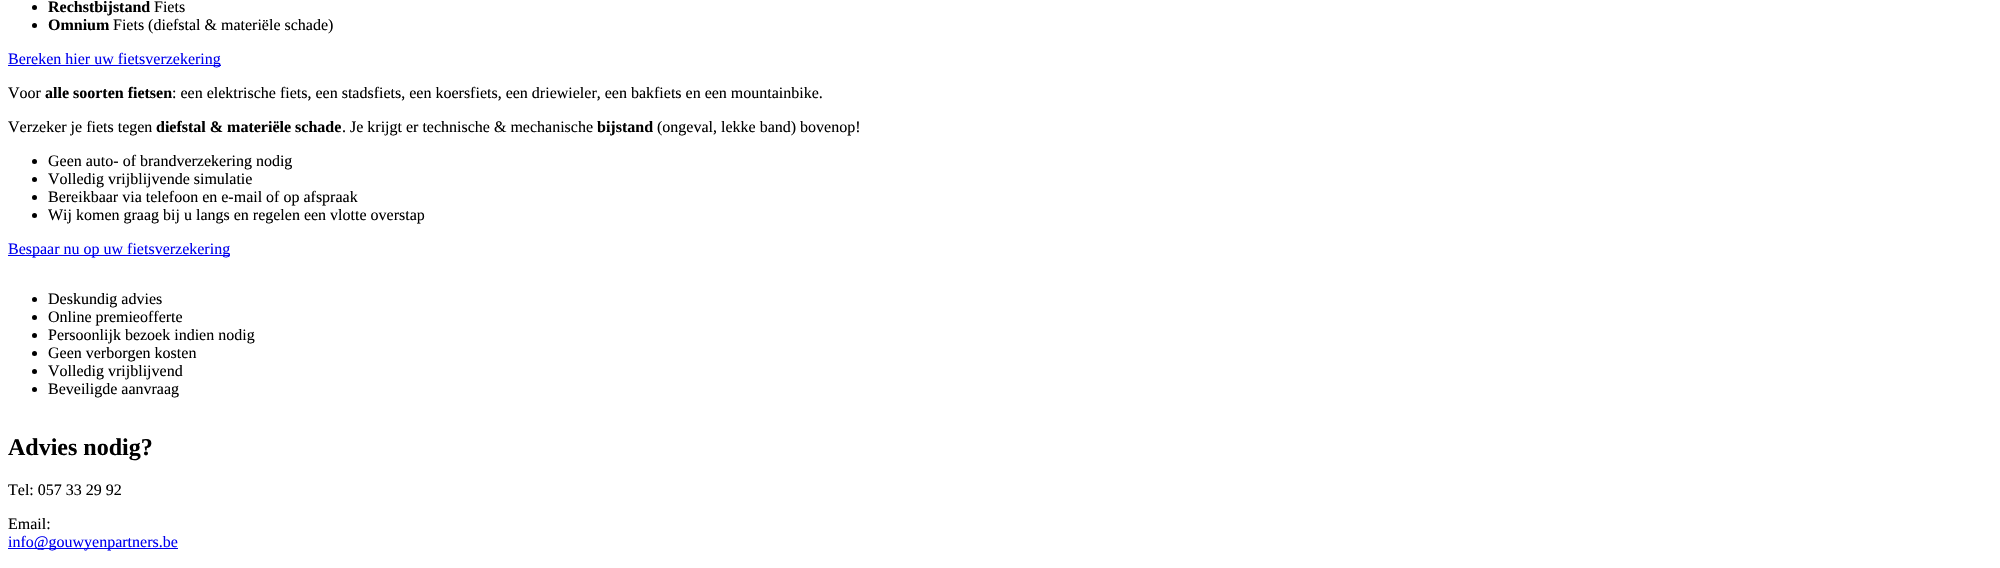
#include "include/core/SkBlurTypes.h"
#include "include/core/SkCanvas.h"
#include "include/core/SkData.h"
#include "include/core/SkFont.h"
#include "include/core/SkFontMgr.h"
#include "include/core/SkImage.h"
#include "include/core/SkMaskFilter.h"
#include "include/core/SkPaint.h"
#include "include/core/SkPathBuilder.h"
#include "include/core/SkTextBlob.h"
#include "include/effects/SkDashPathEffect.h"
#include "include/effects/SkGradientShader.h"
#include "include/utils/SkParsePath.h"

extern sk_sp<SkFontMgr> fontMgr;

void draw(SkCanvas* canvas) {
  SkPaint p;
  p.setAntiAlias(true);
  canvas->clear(SK_ColorWHITE);
  p.setColor(SK_ColorBLACK);
  canvas->drawCircle(34.5f, 7.5f, 2.5f, p);
  canvas->drawCircle(34.5f, 25.5f, 2.5f, p);
  p.setColor(SkColorSetRGB(0, 0, 238));
  canvas->drawRect(SkRect::MakeLTRB(8, 65, 221, 66), p);
  p.setColor(SK_ColorBLACK);
  canvas->drawCircle(34.5f, 161.5f, 2.5f, p);
  canvas->drawCircle(34.5f, 179.5f, 2.5f, p);
  canvas->drawCircle(34.5f, 197.5f, 2.5f, p);
  canvas->drawCircle(34.5f, 215.5f, 2.5f, p);
  p.setColor(SkColorSetRGB(0, 0, 238));
  canvas->drawRect(SkRect::MakeLTRB(8, 255, 230, 256), p);
  p.setColor(SK_ColorBLACK);
  canvas->drawCircle(34.5f, 299.5f, 2.5f, p);
  canvas->drawCircle(34.5f, 317.5f, 2.5f, p);
  canvas->drawCircle(34.5f, 335.5f, 2.5f, p);
  canvas->drawCircle(34.5f, 353.5f, 2.5f, p);
  canvas->drawCircle(34.5f, 371.5f, 2.5f, p);
  canvas->drawCircle(34.5f, 389.5f, 2.5f, p);
  p.setColor(SkColorSetRGB(0, 0, 238));
  canvas->drawRect(SkRect::MakeLTRB(8, 548, 178, 549), p);
  SkFont font1(fontMgr->matchFamilyStyle("Liberation Serif", SkFontStyle::Bold()), 16);
  font1.setSubpixel(true);
  p.setColor(SK_ColorBLACK);
  canvas->drawString("Rechstbijstand", 48, 12, font1, p);
  SkFont font2(fontMgr->matchFamilyStyle("Liberation Serif", SkFontStyle::Normal()), 16);
  font2.setSubpixel(true);
  canvas->drawString("Fiets", 154, 12, font2, p);
  canvas->drawString("Omnium", 48, 30, font1, p);
  canvas->drawString("Fiets (diefstal & materiële schade)", 113, 30, font2, p);
  p.setColor(SkColorSetRGB(0, 0, 238));
  canvas->drawString("Bereken hier uw fietsverzekering", 8, 64, font2, p);
  p.setColor(SK_ColorBLACK);
  canvas->drawString("Voor", 8, 98, font2, p);
  canvas->drawString("alle soorten fietsen", 45, 98, font1, p);
  canvas->drawString(": een elektrische fiets, een stadsfiets, een koersfiets, een driewieler, een bakfiets en een mountainbike.", 172, 98, font2, p);
  canvas->drawString("Verzeker je fiets tegen", 8, 132, font2, p);
  canvas->drawString("diefstal & materiële schade", 156, 132, font1, p);
  canvas->drawString(". Je krijgt er technische & mechanische", 342, 132, font2, p);
  canvas->drawString("bijstand", 597, 132, font1, p);
  canvas->drawString("(ongeval, lekke band) bovenop!", 657, 132, font2, p);
  canvas->drawString("Geen auto- of brandverzekering nodig", 48, 166, font2, p);
  canvas->drawString("Volledig vrijblijvende simulatie", 48, 184, font2, p);
  canvas->drawString("Bereikbaar via telefoon en e-mail of op afspraak", 48, 202, font2, p);
  canvas->drawString("Wij komen graag bij u langs en regelen een vlotte overstap", 48, 220, font2, p);
  p.setColor(SkColorSetRGB(0, 0, 238));
  canvas->drawString("Bespaar nu op uw fietsverzekering", 8, 254, font2, p);
  p.setColor(SK_ColorBLACK);
  canvas->drawString("Deskundig advies", 48, 304, font2, p);
  canvas->drawString("Online premieofferte", 48, 322, font2, p);
  canvas->drawString("Persoonlijk bezoek indien nodig", 48, 340, font2, p);
  canvas->drawString("Geen verborgen kosten", 48, 358, font2, p);
  canvas->drawString("Volledig vrijblijvend", 48, 376, font2, p);
  canvas->drawString("Beveiligde aanvraag", 48, 394, font2, p);
  SkFont font3(fontMgr->matchFamilyStyle("Liberation Serif", SkFontStyle::Bold()), 24);
  font3.setSubpixel(true);
  canvas->drawString("Advies nodig?", 8, 455, font3, p);
  canvas->drawString("Tel: 057 33 29 92", 8, 495, font2, p);
  canvas->drawString("Email:", 8, 529, font2, p);
  p.setColor(SkColorSetRGB(0, 0, 238));
  canvas->drawString("info@gouwyenpartners.be", 8, 547, font2, p);
}
